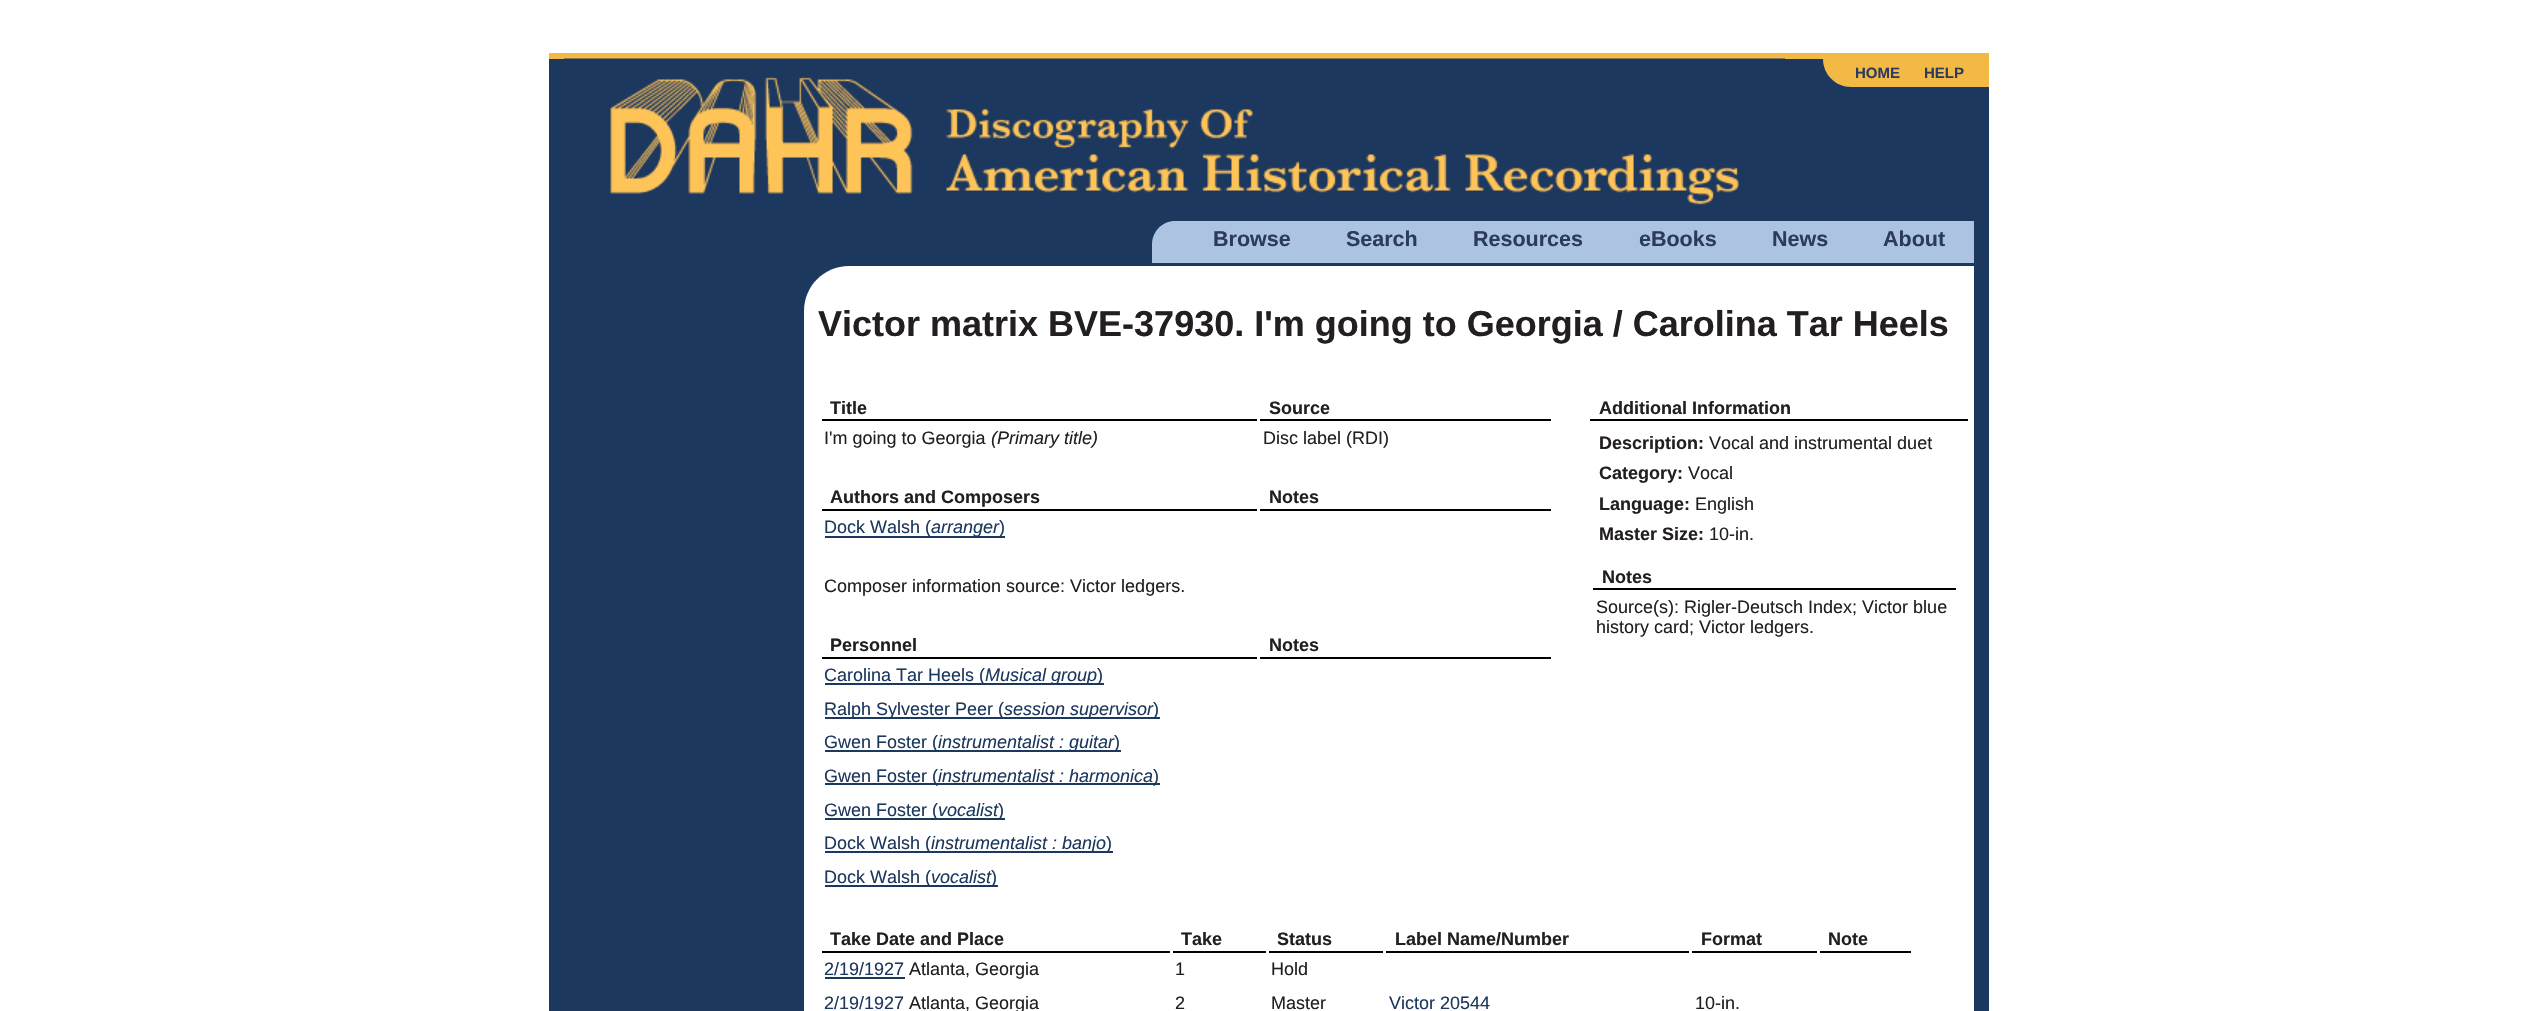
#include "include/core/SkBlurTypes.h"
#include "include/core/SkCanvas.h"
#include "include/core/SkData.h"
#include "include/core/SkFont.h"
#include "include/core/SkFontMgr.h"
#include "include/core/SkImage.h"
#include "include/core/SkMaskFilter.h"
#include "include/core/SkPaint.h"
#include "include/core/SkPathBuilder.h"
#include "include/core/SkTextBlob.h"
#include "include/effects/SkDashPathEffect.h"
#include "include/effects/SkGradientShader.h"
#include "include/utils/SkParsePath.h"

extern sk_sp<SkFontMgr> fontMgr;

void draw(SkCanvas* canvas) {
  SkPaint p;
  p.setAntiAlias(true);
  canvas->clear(SK_ColorWHITE);
  p.setColor(SkColorSetRGB(29, 56, 94));
  canvas->drawRect(SkRect::MakeLTRB(549, 59, 1989, 1011), p);
  p.setColor(SkColorSetRGB(243, 185, 69));
  canvas->drawRect(SkRect::MakeLTRB(549, 53, 1989, 59), p);
  canvas->drawImageRect(SkImages::DeferredFromEncodedData(SkData::MakeFromFileName("images/1.png")), SkRect::MakeLTRB(564, 58, 1785, 205), SkSamplingOptions());
  canvas->drawPath(SkPathBuilder().moveTo(1823, 59).lineTo(1989, 59).lineTo(1989, 87).lineTo(1851, 87).cubicTo(1835.5f, 87, 1823, 74.5f, 1823, 59).close().detach(), p);
  p.setColor(SkColorSetRGB(172, 195, 225));
  canvas->drawPath(SkPathBuilder().moveTo(1175, 221).lineTo(1974, 221).lineTo(1974, 263).lineTo(1152, 263).lineTo(1152, 244).cubicTo(1152, 231.5f, 1162.5f, 221, 1175, 221).close().detach(), p);
  p.setColor(SK_ColorWHITE);
  canvas->drawPath(SkPathBuilder().moveTo(849, 266).lineTo(1974, 266).lineTo(1974, 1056).lineTo(804, 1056).lineTo(804, 311).cubicTo(804, 286, 824, 266, 849, 266).close().detach(), p);
  p.setColor(SK_ColorBLACK);
  canvas->drawRect(SkRect::MakeLTRB(822, 419, 1257, 421), p);
  canvas->drawRect(SkRect::MakeLTRB(1260, 419, 1551, 421), p);
  canvas->drawRect(SkRect::MakeLTRB(822, 509, 1257, 511), p);
  canvas->drawRect(SkRect::MakeLTRB(1260, 509, 1551, 511), p);
  p.setColor(SkColorSetRGB(29, 56, 94));
  canvas->drawRect(SkRect::MakeLTRB(825, 536, 999, 538), p);
  canvas->drawRect(SkRect::MakeLTRB(999, 536, 1005, 538), p);
  p.setColor(SK_ColorBLACK);
  canvas->drawRect(SkRect::MakeLTRB(822, 657, 1257, 659), p);
  canvas->drawRect(SkRect::MakeLTRB(1260, 657, 1551, 659), p);
  p.setColor(SkColorSetRGB(29, 56, 94));
  canvas->drawRect(SkRect::MakeLTRB(825, 683, 1104, 685), p);
  canvas->drawRect(SkRect::MakeLTRB(825, 717, 1160, 719), p);
  canvas->drawRect(SkRect::MakeLTRB(825, 750, 1121, 752), p);
  canvas->drawRect(SkRect::MakeLTRB(825, 783, 1160, 785), p);
  canvas->drawRect(SkRect::MakeLTRB(825, 818, 1005, 820), p);
  canvas->drawRect(SkRect::MakeLTRB(825, 851, 1113, 853), p);
  canvas->drawRect(SkRect::MakeLTRB(825, 885, 998, 887), p);
  p.setColor(SK_ColorBLACK);
  canvas->drawRect(SkRect::MakeLTRB(1590, 419, 1968, 421), p);
  canvas->drawRect(SkRect::MakeLTRB(1593, 588, 1956, 590), p);
  canvas->drawRect(SkRect::MakeLTRB(822, 951, 1170, 953), p);
  canvas->drawRect(SkRect::MakeLTRB(1173, 951, 1266, 953), p);
  canvas->drawRect(SkRect::MakeLTRB(1269, 951, 1383, 953), p);
  canvas->drawRect(SkRect::MakeLTRB(1386, 951, 1689, 953), p);
  canvas->drawRect(SkRect::MakeLTRB(1692, 951, 1817, 953), p);
  canvas->drawRect(SkRect::MakeLTRB(1820, 951, 1911, 953), p);
  p.setColor(SkColorSetRGB(29, 56, 94));
  canvas->drawRect(SkRect::MakeLTRB(825, 977, 905, 979), p);
  SkFont font1(fontMgr->matchFamilyStyle("Liberation Sans", SkFontStyle::Bold()), 15);
  font1.setSubpixel(true);
  p.setColor(SkColorSetRGB(44, 59, 92));
  canvas->drawString("HOME", 1855, 78, font1, p);
  canvas->drawString("HELP", 1924, 78, font1, p);
  SkFont font2(fontMgr->matchFamilyStyle("Liberation Sans", SkFontStyle::Bold()), 21.5f);
  font2.setSubpixel(true);
  canvas->drawString("Browse", 1213, 246, font2, p);
  canvas->drawString("Search", 1346, 246, font2, p);
  canvas->drawString("Resources", 1473, 246, font2, p);
  canvas->drawString("eBooks", 1639, 246, font2, p);
  canvas->drawString("News", 1772, 246, font2, p);
  canvas->drawString("About", 1883, 246, font2, p);
  SkFont font3(fontMgr->matchFamilyStyle("Liberation Sans", SkFontStyle::Bold()), 36);
  font3.setSubpixel(true);
  p.setColor(SkColorSetRGB(35, 31, 32));
  canvas->drawString("Victor matrix BVE-37930. I'm going to Georgia / Carolina Tar Heels", 818, 336, font3, p);
  SkFont font4(fontMgr->matchFamilyStyle("Liberation Sans", SkFontStyle::Bold()), 18);
  font4.setSubpixel(true);
  canvas->drawString("Title", 830, 414, font4, p);
  canvas->drawString("Source", 1269, 414, font4, p);
  SkFont font5(fontMgr->matchFamilyStyle("Liberation Sans", SkFontStyle::Normal()), 18);
  font5.setSubpixel(true);
  canvas->drawString("I'm going to Georgia", 824, 444, font5, p);
  SkFont font6(fontMgr->matchFamilyStyle("Liberation Sans", SkFontStyle::Italic()), 18);
  font6.setSubpixel(true);
  canvas->drawString("(Primary title)", 991, 444, font6, p);
  canvas->drawString("Disc label (RDI)", 1263, 444, font5, p);
  canvas->drawString("Authors and Composers", 830, 503, font4, p);
  canvas->drawString("Notes", 1269, 503, font4, p);
  p.setColor(SkColorSetRGB(29, 56, 94));
  canvas->drawString("Dock Walsh (", 824, 533, font5, p);
  canvas->drawString("arranger", 931, 533, font6, p);
  canvas->drawString(")", 999, 533, font5, p);
  p.setColor(SkColorSetRGB(35, 31, 32));
  canvas->drawString("Composer information source: Victor ledgers.", 824, 592, font5, p);
  canvas->drawString("Personnel", 830, 651, font4, p);
  canvas->drawString("Notes", 1269, 651, font4, p);
  p.setColor(SkColorSetRGB(29, 56, 94));
  canvas->drawString("Carolina Tar Heels (", 824, 681, font5, p);
  canvas->drawString("Musical group", 985, 681, font6, p);
  canvas->drawString(")", 1097, 681, font5, p);
  canvas->drawString("Ralph Sylvester Peer (", 824, 715, font5, p);
  canvas->drawString("session supervisor", 1004, 715, font6, p);
  canvas->drawString(")", 1153, 715, font5, p);
  canvas->drawString("Gwen Foster (", 824, 748, font5, p);
  canvas->drawString("instrumentalist : guitar", 938, 748, font6, p);
  canvas->drawString(")", 1114, 748, font5, p);
  canvas->drawString("Gwen Foster (", 824, 782, font5, p);
  canvas->drawString("instrumentalist : harmonica", 938, 782, font6, p);
  canvas->drawString(")", 1153, 782, font5, p);
  canvas->drawString("Gwen Foster (", 824, 816, font5, p);
  canvas->drawString("vocalist", 938, 816, font6, p);
  canvas->drawString(")", 998, 816, font5, p);
  canvas->drawString("Dock Walsh (", 824, 849, font5, p);
  canvas->drawString("instrumentalist : banjo", 931, 849, font6, p);
  canvas->drawString(")", 1106, 849, font5, p);
  canvas->drawString("Dock Walsh (", 824, 883, font5, p);
  canvas->drawString("vocalist", 931, 883, font6, p);
  canvas->drawString(")", 991, 883, font5, p);
  p.setColor(SkColorSetRGB(35, 31, 32));
  canvas->drawString("Additional Information", 1599, 414, font4, p);
  canvas->drawString("Description:", 1599, 449, font4, p);
  canvas->drawString("Vocal and instrumental duet", 1709, 449, font5, p);
  canvas->drawString("Category:", 1599, 479, font4, p);
  canvas->drawString("Vocal", 1688, 479, font5, p);
  canvas->drawString("Language:", 1599, 510, font4, p);
  canvas->drawString("English", 1695, 510, font5, p);
  canvas->drawString("Master Size:", 1599, 540, font4, p);
  canvas->drawString("10-in.", 1709, 540, font5, p);
  canvas->drawString("Notes", 1602, 583, font4, p);
  canvas->drawString("Source(s): Rigler-Deutsch Index; Victor blue", 1596, 613, font5, p);
  canvas->drawString("history card; Victor ledgers.", 1596, 633, font5, p);
  canvas->drawString("Take Date and Place", 830, 945, font4, p);
  canvas->drawString("Take", 1181, 945, font4, p);
  canvas->drawString("Status", 1277, 945, font4, p);
  canvas->drawString("Label Name/Number", 1395, 945, font4, p);
  canvas->drawString("Format", 1701, 945, font4, p);
  canvas->drawString("Note", 1828, 945, font4, p);
  p.setColor(SkColorSetRGB(29, 56, 94));
  canvas->drawString("2/19/1927", 824, 975, font5, p);
  p.setColor(SkColorSetRGB(35, 31, 32));
  canvas->drawString("Atlanta, Georgia", 909, 975, font5, p);
  canvas->drawString("1", 1175, 975, font5, p);
  canvas->drawString("Hold", 1271, 975, font5, p);
  p.setColor(SkColorSetRGB(29, 56, 94));
  canvas->drawString("2/19/1927", 824, 1009, font5, p);
  p.setColor(SkColorSetRGB(35, 31, 32));
  canvas->drawString("Atlanta, Georgia", 909, 1009, font5, p);
  canvas->drawString("2", 1175, 1009, font5, p);
  canvas->drawString("Master", 1271, 1009, font5, p);
  p.setColor(SkColorSetRGB(29, 56, 94));
  canvas->drawString("Victor 20544", 1389, 1009, font5, p);
  p.setColor(SkColorSetRGB(35, 31, 32));
  canvas->drawString("10-in.", 1695, 1009, font5, p);
}
